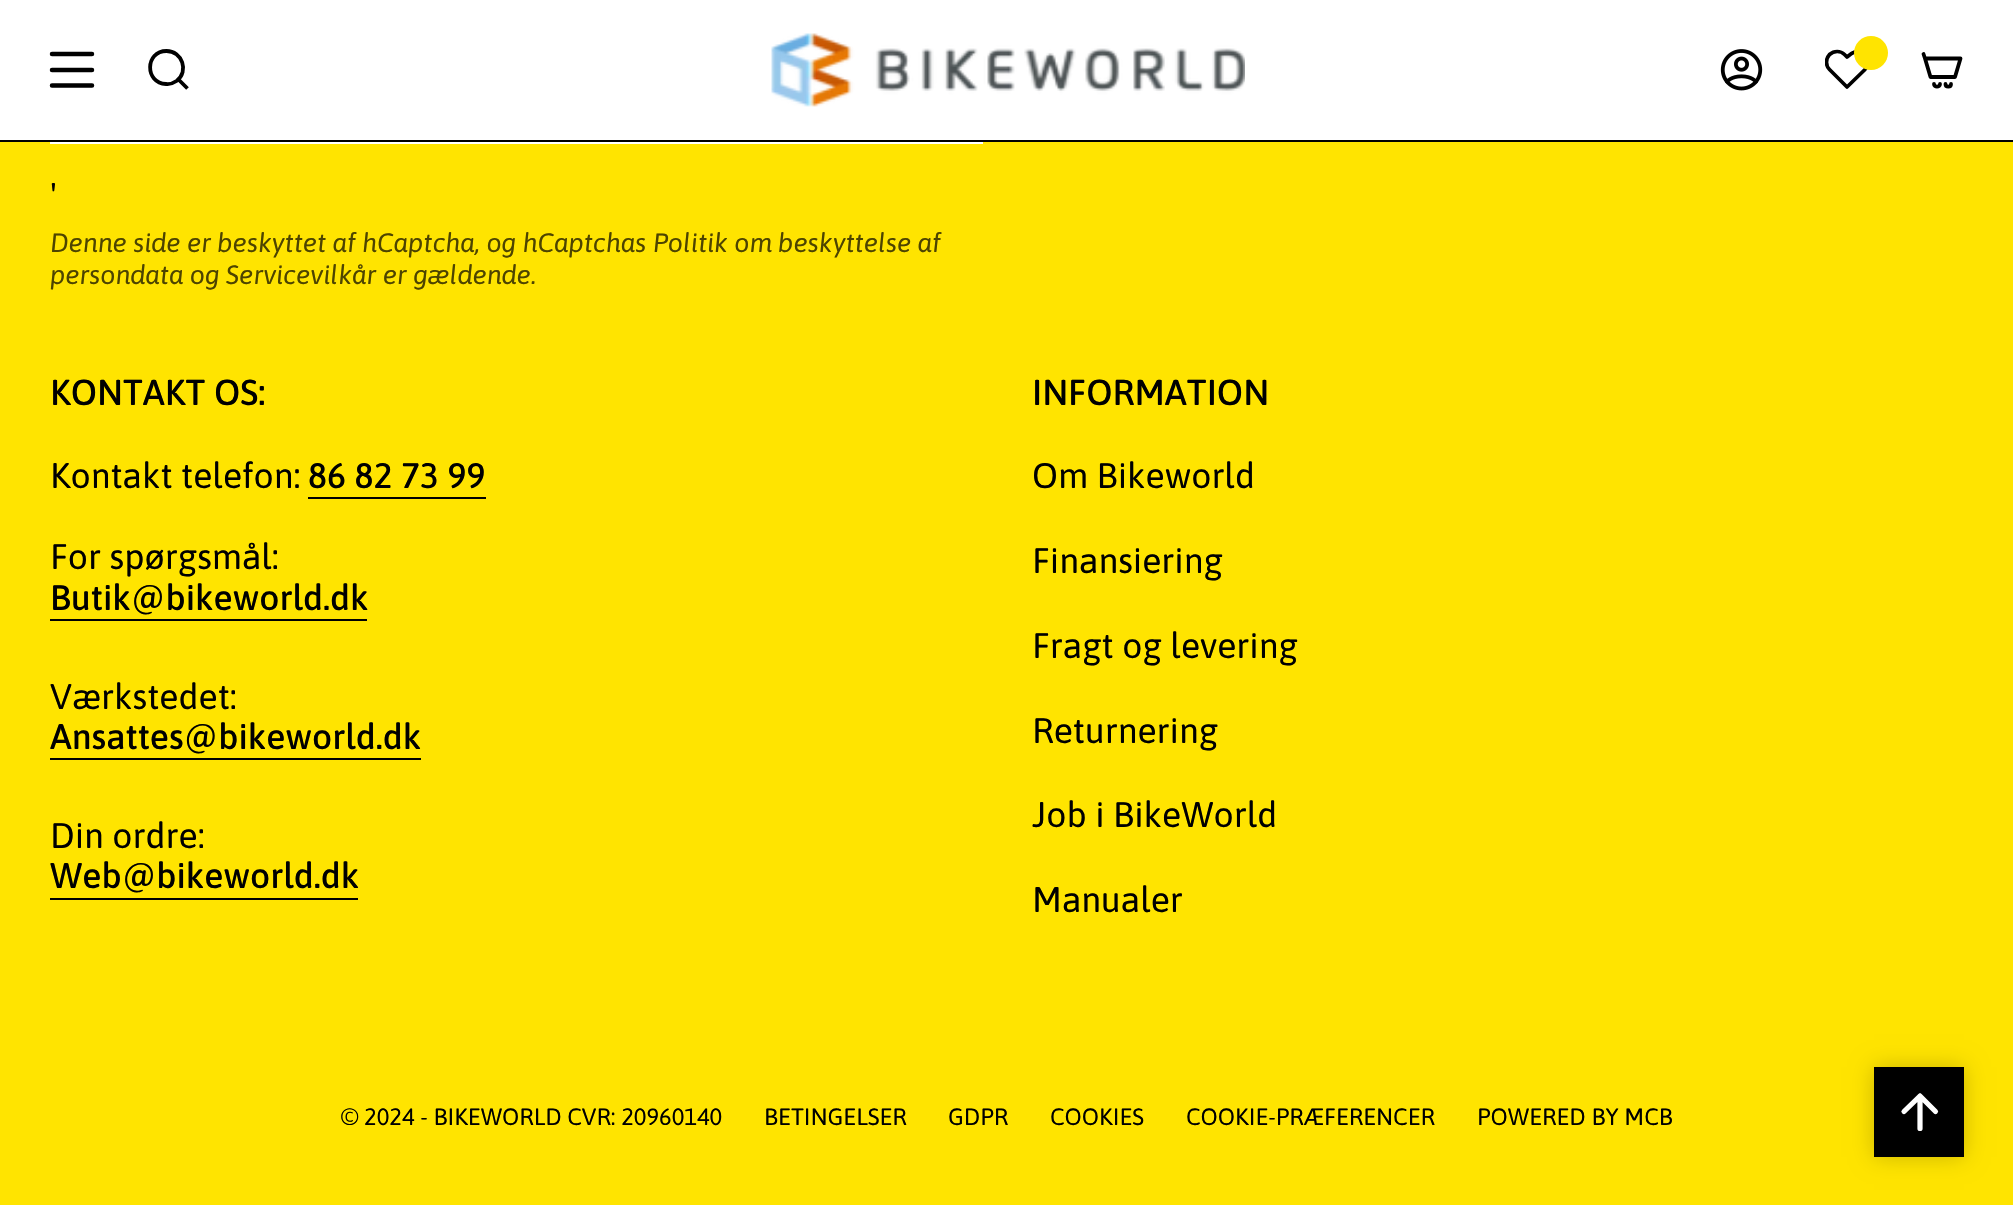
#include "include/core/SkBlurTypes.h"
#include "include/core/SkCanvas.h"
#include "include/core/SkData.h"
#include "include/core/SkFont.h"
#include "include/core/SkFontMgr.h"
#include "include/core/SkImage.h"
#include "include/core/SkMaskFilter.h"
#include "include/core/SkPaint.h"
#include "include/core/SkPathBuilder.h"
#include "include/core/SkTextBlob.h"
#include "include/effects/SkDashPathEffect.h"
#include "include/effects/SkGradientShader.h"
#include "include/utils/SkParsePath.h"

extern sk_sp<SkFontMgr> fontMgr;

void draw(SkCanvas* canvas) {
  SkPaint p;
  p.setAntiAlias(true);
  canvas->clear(SkColorSetRGB(255, 228, 0));
  p.setColor(SK_ColorWHITE);
  canvas->drawRect(SkRect::MakeLTRB(0, 0, 2013, 140), p);
  p.setColor(SK_ColorBLACK);
  canvas->drawRect(SkRect::MakeLTRB(0, 140, 2013, 142), p);
  p.setStyle(SkPaint::kStroke_Style);
  p.setStrokeWidth(4.5f);
  p.setStrokeCap(SkPaint::kRound_Cap);
  p.setStrokeJoin(SkPaint::kRound_Join);
  canvas->drawPath(SkPathBuilder().moveTo(52, 54).lineTo(92, 54).moveTo(52, 70).lineTo(92, 70).moveTo(52, 85.5f).lineTo(92, 85.5f).detach(), p);
  p.setStrokeWidth(3.8f);
  p.setStrokeCap(SkPaint::kButt_Cap);
  p.setStrokeJoin(SkPaint::kMiter_Join);
  canvas->drawPath(SkPathBuilder().moveTo(166.5f, 51).cubicTo(182, 51, 189.5f, 71.5f, 176.5f, 81).cubicTo(173.5f, 83, 169.5f, 84.5f, 166, 84).cubicTo(144.5f, 83, 145, 51, 166.5f, 51).close().moveTo(178.5f, 79.5f).lineTo(187.5f, 88.5f).detach(), p);
  canvas->drawImageRect(SkImages::DeferredFromEncodedData(SkData::MakeFromFileName("images/1.png")), SkRect::MakeLTRB(771, 33, 1245, 107), SkSamplingOptions());
  canvas->drawImageRect(SkImages::DeferredFromEncodedData(SkData::MakeFromFileName("images/2.png")), SkRect::MakeLTRB(1720, 49, 1763, 91), SkSamplingOptions());
  canvas->save();
  canvas->clipRect(SkRect::MakeLTRB(1825, 47, 1870, 92));
  p.setStrokeWidth(3.7f);
  p.setStrokeCap(SkPaint::kRound_Cap);
  p.setStrokeJoin(SkPaint::kRound_Join);
  canvas->drawPath(SkPathBuilder().moveTo(1865, 69.5f).lineTo(1847, 87).lineTo(1829.5f, 69.5f).cubicTo(1825.5f, 65.5f, 1825.5f, 59, 1829.5f, 54.5f).cubicTo(1834, 50.5f, 1840.5f, 50.5f, 1844.5f, 54.5f).lineTo(1847, 57).cubicTo(1849, 55.5f, 1851, 53.5f, 1853.5f, 52.5f).cubicTo(1864, 48, 1873, 61.5f, 1865, 69.5f).close().detach(), p);
  canvas->restore();
  p.setStyle(SkPaint::kFill_Style);
  p.setColor(SkColorSetRGB(255, 228, 0));
  canvas->drawCircle(1871, 53, 17, p);
  p.setStyle(SkPaint::kStroke_Style);
  p.setStrokeWidth(3.8f);
  p.setColor(SK_ColorBLACK);
  canvas->drawPath(SkPathBuilder().moveTo(1925, 58.5f).lineTo(1960.5f, 58.5f).lineTo(1955, 77).lineTo(1930.5f, 77).close().moveTo(1925, 58.5f).lineTo(1923.5f, 54).moveTo(1940, 84).cubicTo(1940, 87.5f, 1934, 87.5f, 1934, 84).moveTo(1951, 84).cubicTo(1951, 87.5f, 1945.5f, 87.5f, 1945.5f, 84).detach(), p);
  p.setStyle(SkPaint::kFill_Style);
  p.setColor(SK_ColorWHITE);
  canvas->drawRect(SkRect::MakeLTRB(50, 142, 983, 144), p);
  p.setColor(SK_ColorBLACK);
  canvas->drawRect(SkRect::MakeLTRB(308, 497, 486, 499), p);
  canvas->drawRect(SkRect::MakeLTRB(50, 619, 367, 621), p);
  canvas->drawRect(SkRect::MakeLTRB(50, 758, 421, 760), p);
  canvas->drawRect(SkRect::MakeLTRB(50, 898, 358, 900), p);
  p.setColor(SkColorSetARGB(51, 0, 0, 0));
  p.setMaskFilter(SkMaskFilter::MakeBlur(kNormal_SkBlurStyle, 11));
  canvas->drawRect(SkRect::MakeLTRB(1874, 1067, 1964, 1157), p);
  p.setMaskFilter(nullptr);
  p.setColor(SK_ColorBLACK);
  canvas->drawRect(SkRect::MakeLTRB(1874, 1067, 1964, 1157), p);
  p.setStyle(SkPaint::kStroke_Style);
  p.setStrokeWidth(5.2f);
  p.setColor(SK_ColorWHITE);
  canvas->drawPath(SkPathBuilder().moveTo(1920, 1128.5f).lineTo(1920, 1096).moveTo(1920, 1096).lineTo(1935.5f, 1111.5f).moveTo(1920, 1096).lineTo(1904, 1111.5f).detach(), p);
  SkFont font1(fontMgr->matchFamilyStyle("Asap", SkFontStyle::Normal()), 35.5f);
  font1.setSubpixel(true);
  p.setStyle(SkPaint::kFill_Style);
  p.setColor(SK_ColorBLACK);
  canvas->drawString("'", 50, 208, font1, p);
  SkFont font2(fontMgr->matchFamilyStyle("Asap", SkFontStyle::Italic()), 26.6f);
  font2.setSubpixel(true);
  p.setColor(SkColorSetRGB(77, 68, 0));
  canvas->drawString("Denne side er beskyttet af hCaptcha, og hCaptchas Politik om beskyttelse af", 50, 252, font2, p);
  canvas->drawString("persondata og Servicevilkår er gældende.", 50, 284, font2, p);
  SkFont font3(fontMgr->matchFamilyStyle("Asap", SkFontStyle(500, SkFontStyle::kNormal_Width, SkFontStyle::kUpright_Slant)), 36);
  font3.setSubpixel(true);
  p.setColor(SK_ColorBLACK);
  canvas->drawString("KONTAKT OS:", 50, 405, font3, p);
  canvas->drawString("Kontakt telefon:", 50, 488, font1, p);
  SkFont font4(fontMgr->matchFamilyStyle("Asap", SkFontStyle(500, SkFontStyle::kNormal_Width, SkFontStyle::kUpright_Slant)), 35.5f);
  font4.setSubpixel(true);
  canvas->drawString("86 82 73 99", 308, 488, font4, p);
  canvas->drawString("For spørgsmål:", 50, 569, font1, p);
  canvas->drawString("Butik@bikeworld.dk", 50, 610, font4, p);
  canvas->drawString("Værkstedet:", 50, 709, font1, p);
  canvas->drawString("Ansattes@bikeworld.dk", 50, 749, font4, p);
  canvas->drawString("Din ordre:", 50, 848, font1, p);
  canvas->drawString("Web@bikeworld.dk", 50, 888, font4, p);
  canvas->drawString("INFORMATION", 1032, 405, font3, p);
  canvas->drawString("Om Bikeworld", 1032, 488, font1, p);
  canvas->drawString("Finansiering", 1032, 573, font1, p);
  canvas->drawString("Fragt og levering", 1032, 658, font1, p);
  canvas->drawString("Returnering", 1032, 743, font1, p);
  canvas->drawString("Job i BikeWorld", 1032, 827, font1, p);
  canvas->drawString("Manualer", 1032, 912, font1, p);
  SkFont font5(fontMgr->matchFamilyStyle("Asap", SkFontStyle::Normal()), 23.6f);
  font5.setSubpixel(true);
  canvas->drawString("© 2024 - BIKEWORLD CVR: 20960140", 341, 1125, font5, p);
  canvas->drawString("BETINGELSER", 764, 1125, font5, p);
  canvas->drawString("GDPR", 948, 1125, font5, p);
  canvas->drawString("COOKIES", 1050, 1125, font5, p);
  canvas->drawString("COOKIE-PRÆFERENCER", 1186, 1125, font5, p);
  canvas->drawString("POWERED BY MCB", 1477, 1125, font5, p);
}
